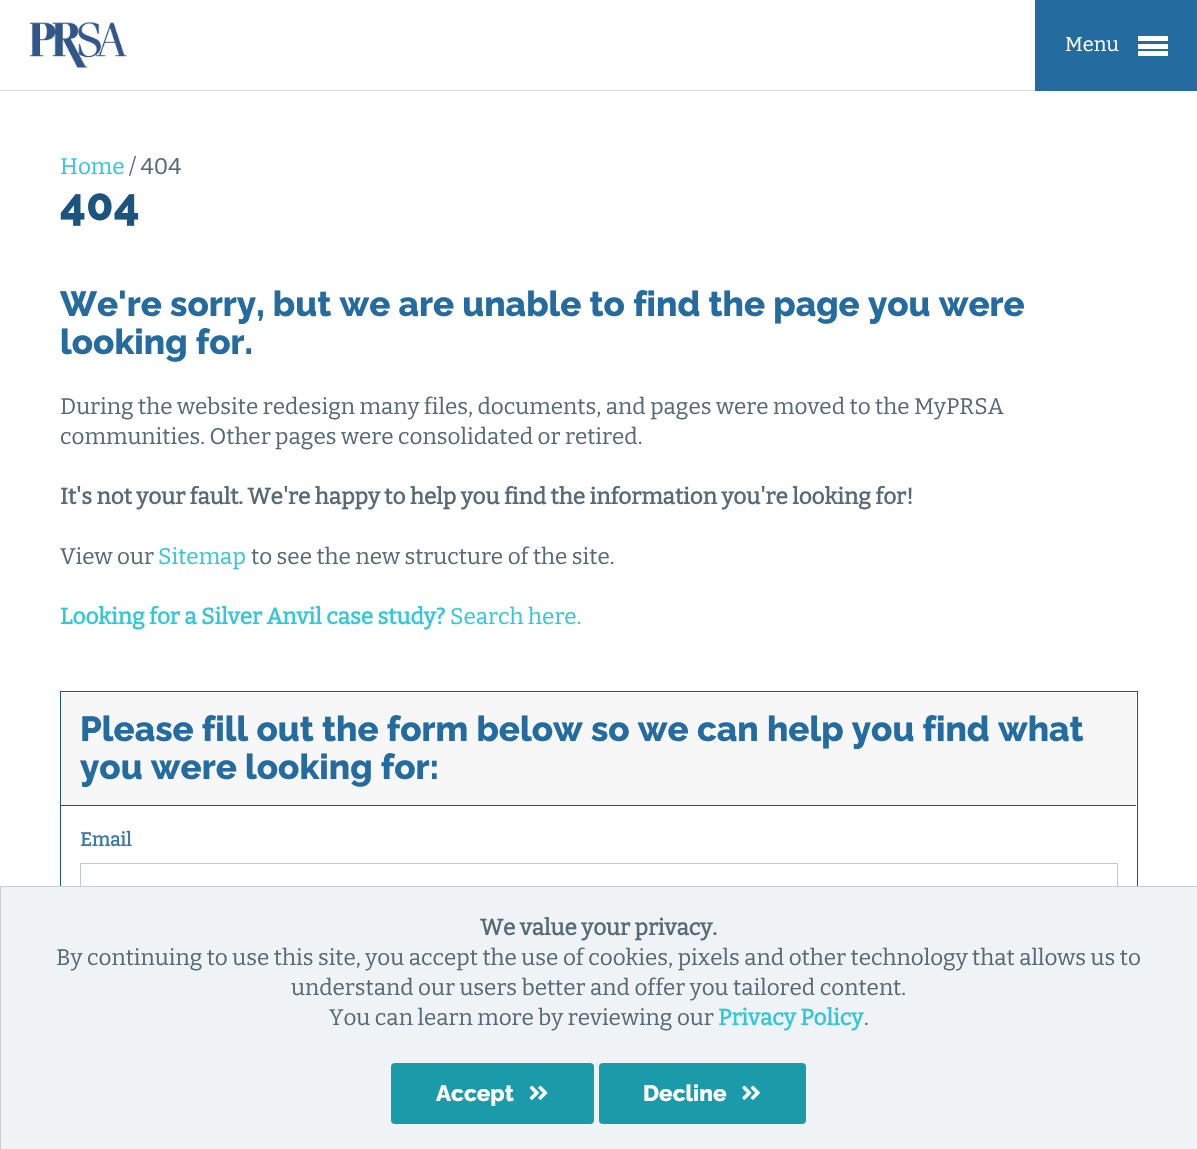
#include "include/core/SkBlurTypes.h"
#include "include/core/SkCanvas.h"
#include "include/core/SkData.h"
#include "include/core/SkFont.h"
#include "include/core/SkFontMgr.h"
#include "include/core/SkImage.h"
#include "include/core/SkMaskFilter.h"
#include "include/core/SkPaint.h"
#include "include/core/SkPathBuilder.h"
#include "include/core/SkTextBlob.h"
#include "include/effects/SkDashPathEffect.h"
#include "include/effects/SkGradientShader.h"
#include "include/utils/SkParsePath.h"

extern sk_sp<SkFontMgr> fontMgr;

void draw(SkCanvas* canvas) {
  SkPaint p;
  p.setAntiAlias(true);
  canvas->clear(SK_ColorWHITE);
  p.setColor(SkColorSetRGB(216, 216, 216));
  canvas->drawRect(SkRect::MakeLTRB(0, 90, 1035, 91), p);
  canvas->drawImageRect(SkImages::DeferredFromEncodedData(SkData::MakeFromFileName("images/1.png")), SkRect::MakeLTRB(30, 22, 127, 68), SkSamplingOptions());
  p.setColor(SkColorSetRGB(36, 107, 160));
  canvas->drawRect(SkRect::MakeLTRB(1035, 0, 1197, 91), p);
  p.setColor(SK_ColorWHITE);
  canvas->drawRect(SkRect::MakeLTRB(1138, 36, 1168, 41), p);
  canvas->drawRect(SkRect::MakeLTRB(1138, 44, 1168, 49), p);
  canvas->drawRect(SkRect::MakeLTRB(1138, 51, 1168, 56), p);
  p.setStyle(SkPaint::kStroke_Style);
  p.setStrokeWidth(1);
  p.setColor(SkColorSetRGB(28, 84, 125));
  canvas->drawRect(SkRect::MakeLTRB(60.5f, 691.5f, 1137.5f, 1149.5f), p);
  p.setStyle(SkPaint::kFill_Style);
  p.setColor(SkColorSetRGB(247, 247, 247));
  canvas->drawRect(SkRect::MakeLTRB(61, 693, 1136, 805), p);
  p.setColor(SkColorSetRGB(28, 84, 125));
  canvas->drawRect(SkRect::MakeLTRB(61, 805, 1136, 806), p);
  p.setStyle(SkPaint::kStroke_Style);
  p.setColor(SkColorSetRGB(188, 199, 207));
  canvas->drawRect(SkRect::MakeLTRB(80.5f, 863.5f, 1117.5f, 917.5f), p);
  p.setStyle(SkPaint::kFill_Style);
  p.setColor(SkColorSetRGB(240, 243, 245));
  canvas->drawRect(SkRect::MakeLTRB(0.5f, 886.5f, 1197.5f, 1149.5f), p);
  p.setStyle(SkPaint::kStroke_Style);
  p.setColor(SkColorSetRGB(204, 204, 204));
  canvas->drawRect(SkRect::MakeLTRB(0.5f, 886.5f, 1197.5f, 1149.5f), p);
  p.setStyle(SkPaint::kFill_Style);
  p.setColor(SkColorSetRGB(27, 154, 170));
  canvas->drawRoundRect(SkRect::MakeLTRB(391, 1063, 594, 1124), 4, 4, p);
  canvas->drawImageRect(SkImages::DeferredFromEncodedData(SkData::MakeFromFileName("images/2.png")), SkRect::MakeLTRB(529, 1085, 548, 1100), SkSamplingOptions());
  canvas->drawRoundRect(SkRect::MakeLTRB(599, 1063, 806, 1124), 4, 4, p);
  canvas->drawImageRect(SkImages::DeferredFromEncodedData(SkData::MakeFromFileName("images/3.png")), SkRect::MakeLTRB(742, 1085, 760, 1100), SkSamplingOptions());
  SkFont font1(fontMgr->matchFamilyStyle("Bitter", SkFontStyle(100, SkFontStyle::kNormal_Width, SkFontStyle::kUpright_Slant)), 20);
  font1.setSubpixel(true);
  p.setColor(SK_ColorWHITE);
  canvas->drawString("Menu", 1065, 51, font1, p);
  SkFont font2(fontMgr->matchFamilyStyle("Bitter", SkFontStyle(100, SkFontStyle::kNormal_Width, SkFontStyle::kUpright_Slant)), 22.5f);
  font2.setSubpixel(true);
  p.setColor(SkColorSetRGB(48, 199, 218));
  canvas->drawString("Home", 60, 174, font2, p);
  p.setColor(SkColorSetRGB(85, 105, 118));
  canvas->drawString("/ 404", 129, 174, font2, p);
  SkFont font3(fontMgr->matchFamilyStyle("Raleway", SkFontStyle(800, SkFontStyle::kNormal_Width, SkFontStyle::kUpright_Slant)), 45);
  font3.setSubpixel(true);
  p.setColor(SkColorSetRGB(28, 84, 125));
  canvas->drawString("404", 60, 220, font3, p);
  SkFont font4(fontMgr->matchFamilyStyle("Raleway", SkFontStyle(800, SkFontStyle::kNormal_Width, SkFontStyle::kUpright_Slant)), 35);
  font4.setSubpixel(true);
  p.setColor(SkColorSetRGB(36, 107, 160));
  canvas->drawString("We're sorry, but we are unable to find the page you were", 60, 316, font4, p);
  canvas->drawString("looking for.", 60, 354, font4, p);
  p.setColor(SkColorSetRGB(85, 105, 118));
  canvas->drawString("During the website redesign many files, documents, and pages were moved to the MyPRSA", 60, 414, font2, p);
  canvas->drawString("communities. Other pages were consolidated or retired.", 60, 444, font2, p);
  SkFont font5(fontMgr->matchFamilyStyle("Bitter", SkFontStyle::Bold()), 22.5f);
  font5.setSubpixel(true);
  canvas->drawString("It's not your fault. We're happy to help you find the information you're looking for!", 60, 504, font5, p);
  canvas->drawString("View our", 60, 564, font2, p);
  p.setColor(SkColorSetRGB(48, 199, 218));
  canvas->drawString("Sitemap", 158, 564, font2, p);
  p.setColor(SkColorSetRGB(85, 105, 118));
  canvas->drawString("to see the new structure of the site.", 251, 564, font2, p);
  p.setColor(SkColorSetRGB(48, 199, 218));
  canvas->drawString("Looking for a Silver Anvil case study?", 60, 624, font5, p);
  canvas->drawString("Search here.", 450, 624, font2, p);
  p.setColor(SkColorSetRGB(36, 107, 160));
  canvas->drawString("Please fill out the form below so we can help you find what", 80, 741, font4, p);
  canvas->drawString("you were looking for:", 80, 779, font4, p);
  SkFont font6(fontMgr->matchFamilyStyle("Bitter", SkFontStyle::Bold()), 19);
  font6.setSubpixel(true);
  p.setColor(SkColorSetRGB(58, 122, 170));
  canvas->drawString("Email", 80, 846, font6, p);
  p.setColor(SkColorSetRGB(85, 105, 118));
  canvas->drawString("We value your privacy.", 480, 935, font5, p);
  canvas->drawString("By continuing to use this site, you accept the use of cookies, pixels and other technology that allows us to", 56, 965, font2, p);
  canvas->drawString("understand our users better and offer you tailored content.", 291, 995, font2, p);
  canvas->drawString("You can learn more by reviewing our", 329, 1025, font2, p);
  p.setColor(SkColorSetRGB(48, 199, 218));
  canvas->drawString("Privacy Policy", 718, 1025, font5, p);
  p.setColor(SkColorSetRGB(85, 105, 118));
  canvas->drawString(".", 864, 1025, font2, p);
  SkFont font7(fontMgr->matchFamilyStyle("Raleway", SkFontStyle(800, SkFontStyle::kNormal_Width, SkFontStyle::kUpright_Slant)), 22.5f);
  font7.setSubpixel(true);
  p.setColor(SK_ColorWHITE);
  canvas->drawString("Accept", 436, 1101, font7, p);
  canvas->drawString("Decline", 643, 1101, font7, p);
}
